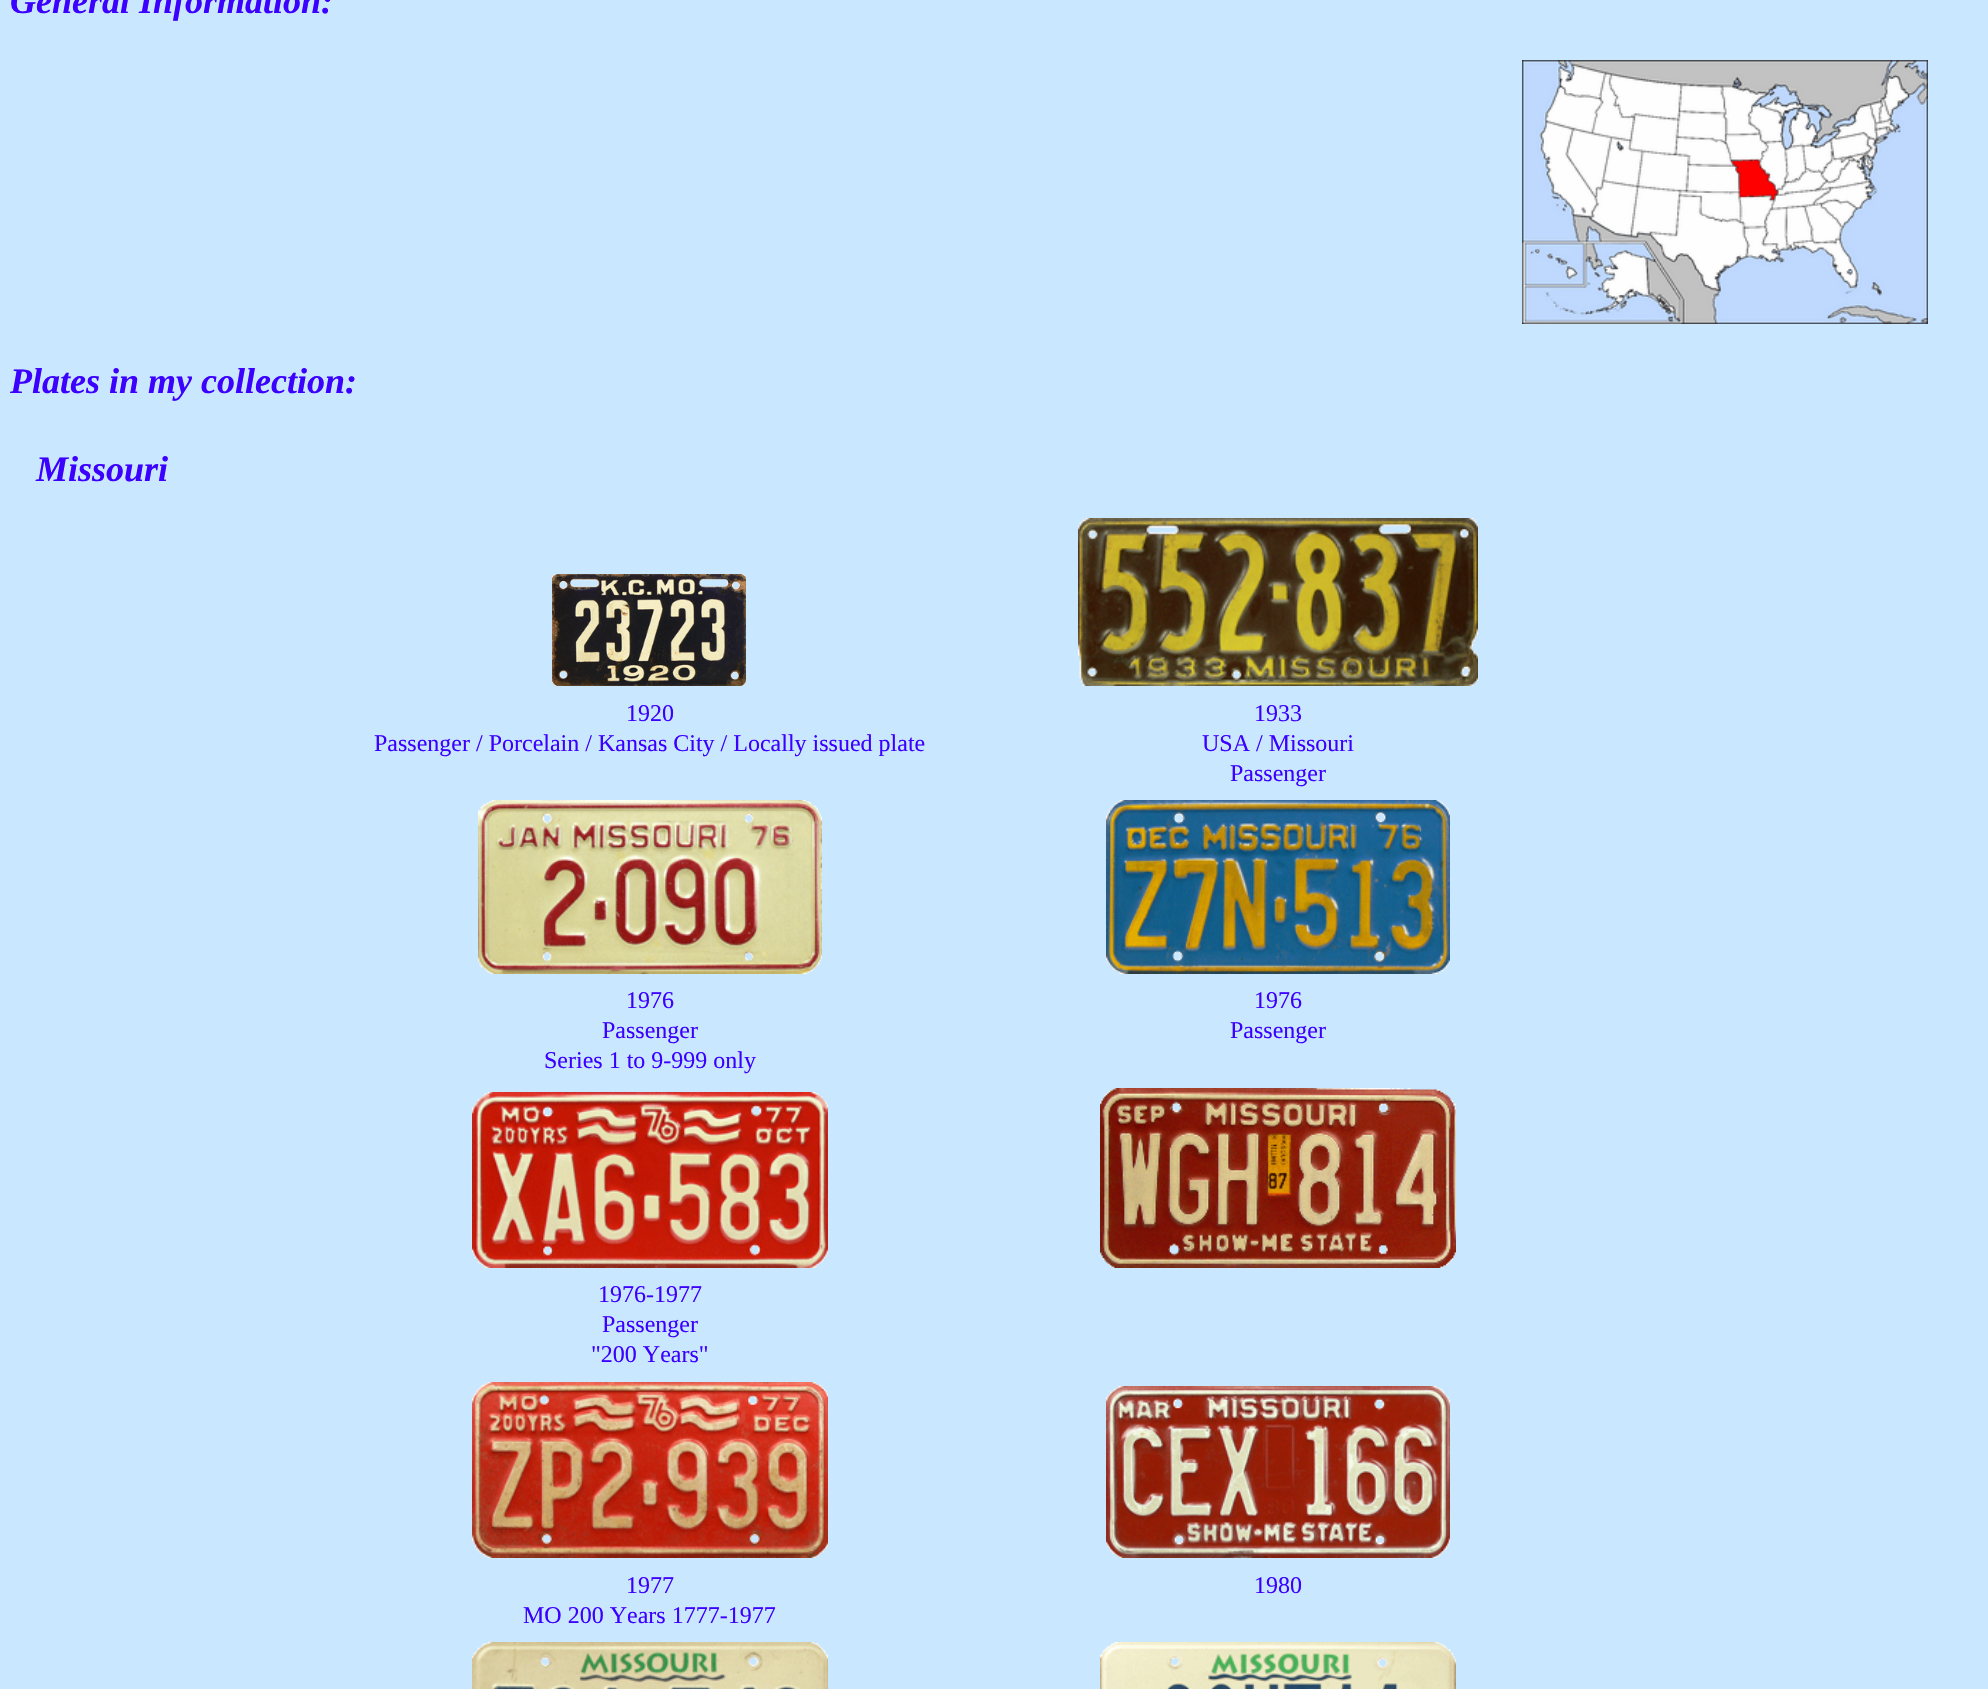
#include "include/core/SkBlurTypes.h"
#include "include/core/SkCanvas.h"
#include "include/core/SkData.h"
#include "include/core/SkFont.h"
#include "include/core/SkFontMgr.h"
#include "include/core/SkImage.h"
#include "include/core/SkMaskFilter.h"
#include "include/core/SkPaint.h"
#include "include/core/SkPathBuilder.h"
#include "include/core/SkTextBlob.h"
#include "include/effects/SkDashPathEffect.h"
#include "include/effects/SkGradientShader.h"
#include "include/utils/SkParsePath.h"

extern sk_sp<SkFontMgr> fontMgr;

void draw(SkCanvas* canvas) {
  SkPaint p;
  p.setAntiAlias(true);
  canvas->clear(SkColorSetRGB(201, 232, 255));
  canvas->drawImageRect(SkImages::DeferredFromEncodedData(SkData::MakeFromFileName("images/1.png")), SkRect::MakeLTRB(1522, 60, 1928, 324), SkSamplingOptions());
  canvas->drawImageRect(SkImages::DeferredFromEncodedData(SkData::MakeFromFileName("images/2.png")), SkRect::MakeLTRB(552, 574, 746, 686), SkSamplingOptions());
  canvas->drawImageRect(SkImages::DeferredFromEncodedData(SkData::MakeFromFileName("images/3.png")), SkRect::MakeLTRB(1078, 518, 1478, 686), SkSamplingOptions());
  canvas->drawImageRect(SkImages::DeferredFromEncodedData(SkData::MakeFromFileName("images/4.png")), SkRect::MakeLTRB(478, 800, 822, 974), SkSamplingOptions());
  canvas->drawImageRect(SkImages::DeferredFromEncodedData(SkData::MakeFromFileName("images/5.png")), SkRect::MakeLTRB(1106, 800, 1450, 974), SkSamplingOptions());
  canvas->drawImageRect(SkImages::DeferredFromEncodedData(SkData::MakeFromFileName("images/6.png")), SkRect::MakeLTRB(472, 1092, 828, 1268), SkSamplingOptions());
  canvas->drawImageRect(SkImages::DeferredFromEncodedData(SkData::MakeFromFileName("images/7.png")), SkRect::MakeLTRB(1100, 1088, 1456, 1268), SkSamplingOptions());
  canvas->drawImageRect(SkImages::DeferredFromEncodedData(SkData::MakeFromFileName("images/8.png")), SkRect::MakeLTRB(472, 1382, 828, 1558), SkSamplingOptions());
  canvas->drawImageRect(SkImages::DeferredFromEncodedData(SkData::MakeFromFileName("images/9.png")), SkRect::MakeLTRB(1106, 1386, 1450, 1558), SkSamplingOptions());
  canvas->drawImageRect(SkImages::DeferredFromEncodedData(SkData::MakeFromFileName("images/10.png")), SkRect::MakeLTRB(472, 1642, 828, 1689), SkSamplingOptions());
  canvas->drawImageRect(SkImages::DeferredFromEncodedData(SkData::MakeFromFileName("images/11.png")), SkRect::MakeLTRB(1100, 1642, 1456, 1689), SkSamplingOptions());
  SkFont font1(fontMgr->matchFamilyStyle("Liberation Serif", SkFontStyle::BoldItalic()), 36);
  font1.setSubpixel(true);
  p.setColor(SkColorSetRGB(60, 0, 255));
  canvas->drawString("General Information:", 10, 13, font1, p);
  canvas->drawString("Plates in my collection:", 10, 393, font1, p);
  canvas->drawString("Missouri", 36, 481, font1, p);
  SkFont font2(fontMgr->matchFamilyStyle("Liberation Serif", SkFontStyle::Normal()), 24);
  font2.setSubpixel(true);
  canvas->drawString("1920", 626, 721, font2, p);
  canvas->drawString("Passenger / Porcelain / Kansas City / Locally issued plate", 374, 751, font2, p);
  canvas->drawString("1933", 1254, 721, font2, p);
  canvas->drawString("USA / Missouri", 1202, 751, font2, p);
  canvas->drawString("Passenger", 1230, 781, font2, p);
  canvas->drawString("1976", 626, 1008, font2, p);
  canvas->drawString("Passenger", 602, 1038, font2, p);
  canvas->drawString("Series 1 to 9-999 only", 544, 1068, font2, p);
  canvas->drawString("1976", 1254, 1008, font2, p);
  canvas->drawString("Passenger", 1230, 1038, font2, p);
  canvas->drawString("1976-1977", 598, 1302, font2, p);
  canvas->drawString("Passenger", 602, 1332, font2, p);
  canvas->drawString("\"200 Years\"", 591, 1362, font2, p);
  canvas->drawString("1977", 626, 1593, font2, p);
  canvas->drawString("MO 200 Years 1777-1977", 523, 1623, font2, p);
  canvas->drawString("1980", 1254, 1593, font2, p);
}
